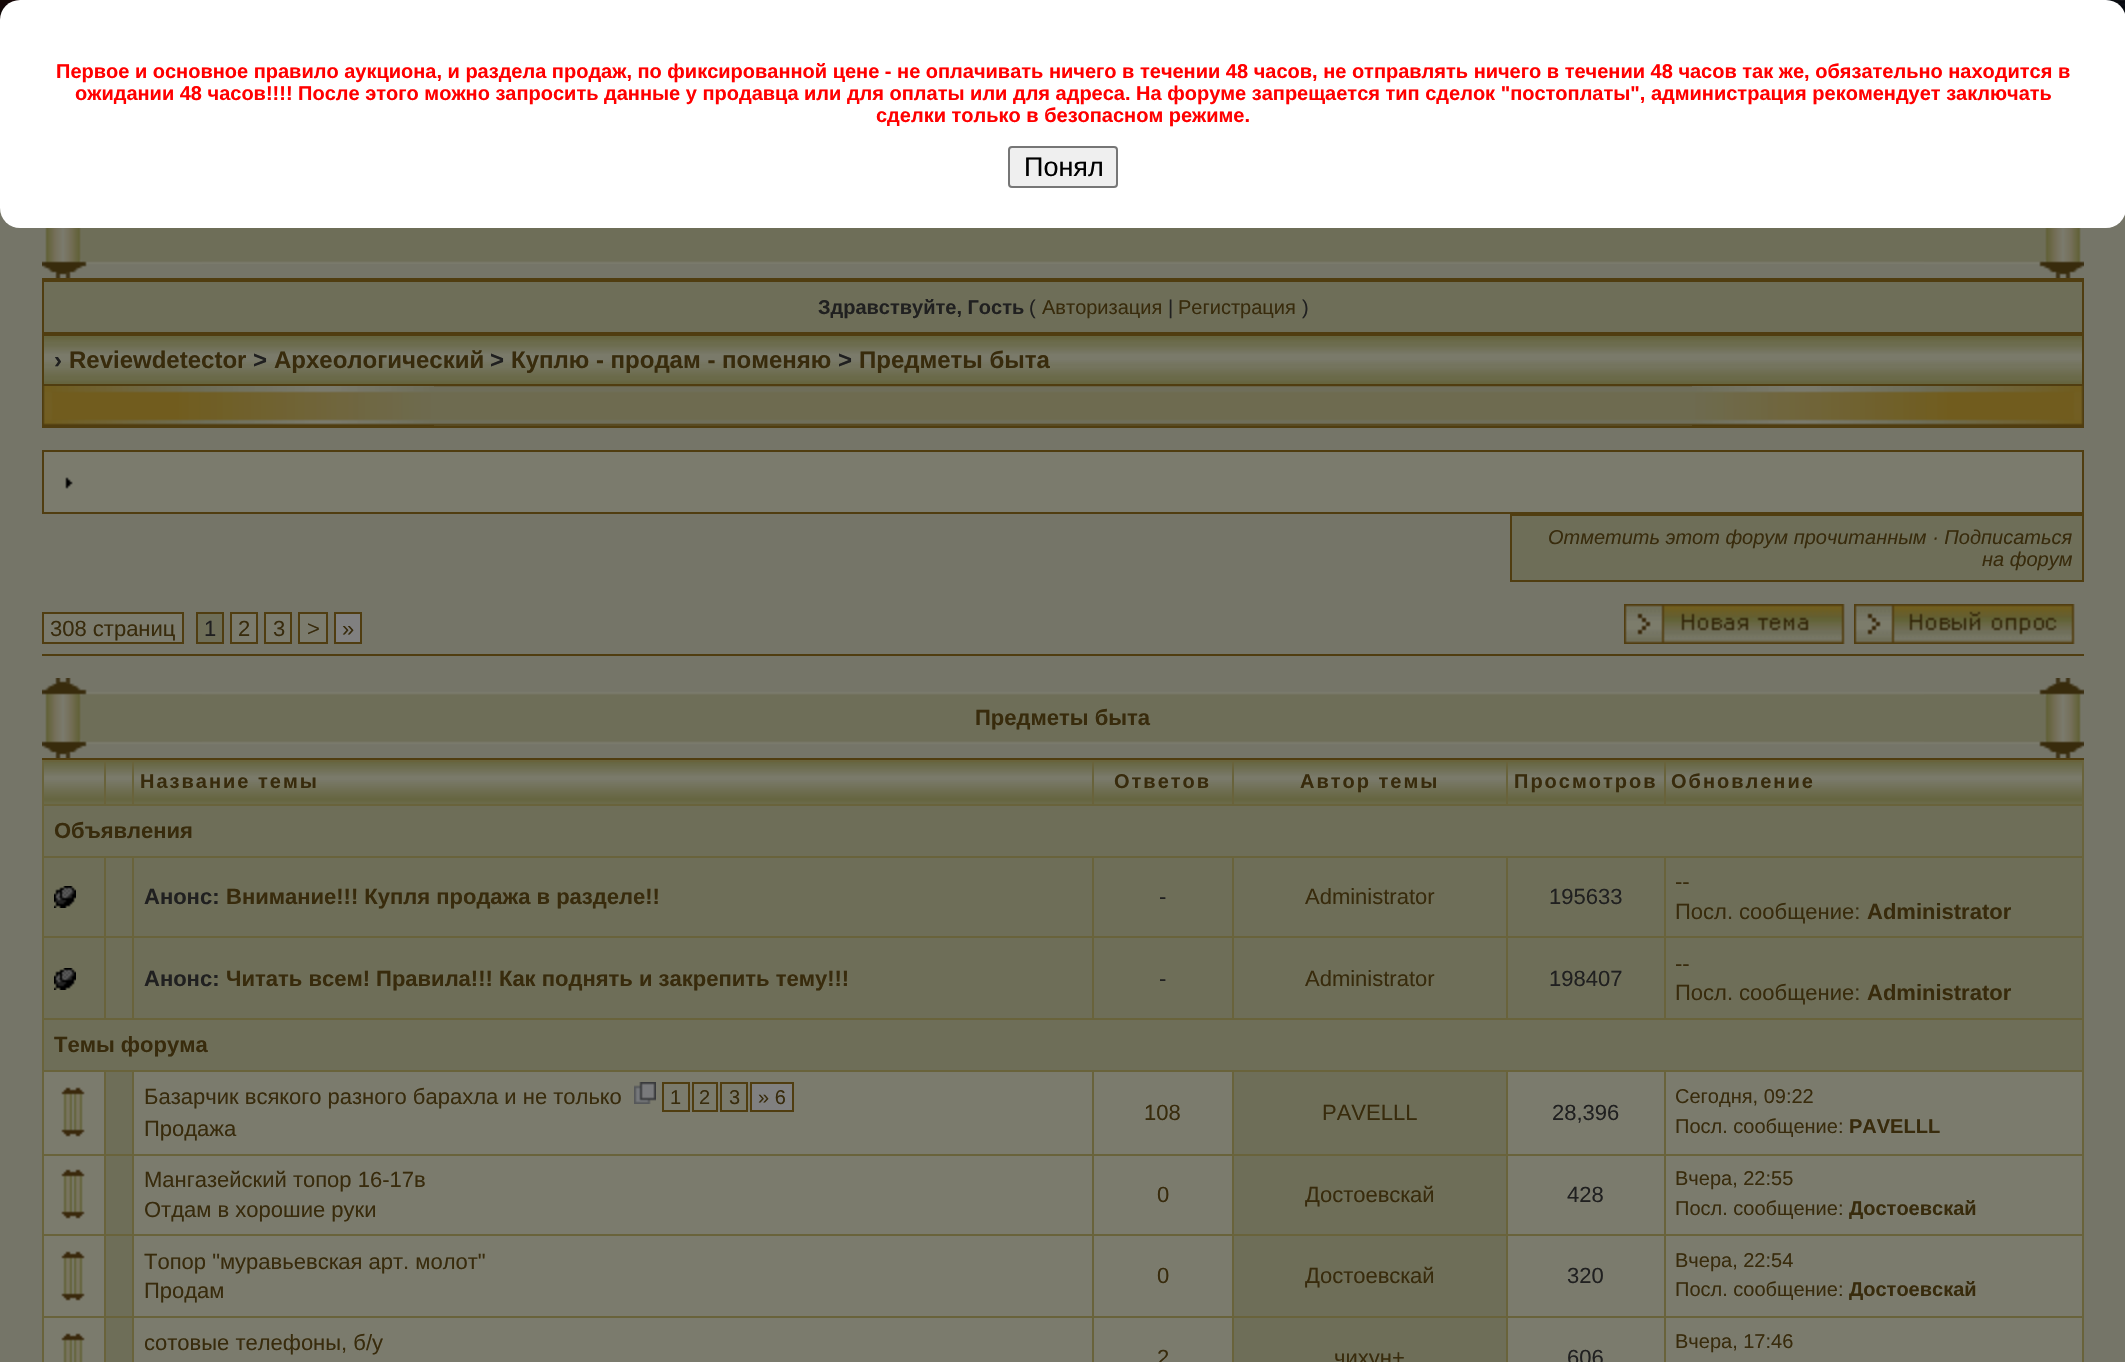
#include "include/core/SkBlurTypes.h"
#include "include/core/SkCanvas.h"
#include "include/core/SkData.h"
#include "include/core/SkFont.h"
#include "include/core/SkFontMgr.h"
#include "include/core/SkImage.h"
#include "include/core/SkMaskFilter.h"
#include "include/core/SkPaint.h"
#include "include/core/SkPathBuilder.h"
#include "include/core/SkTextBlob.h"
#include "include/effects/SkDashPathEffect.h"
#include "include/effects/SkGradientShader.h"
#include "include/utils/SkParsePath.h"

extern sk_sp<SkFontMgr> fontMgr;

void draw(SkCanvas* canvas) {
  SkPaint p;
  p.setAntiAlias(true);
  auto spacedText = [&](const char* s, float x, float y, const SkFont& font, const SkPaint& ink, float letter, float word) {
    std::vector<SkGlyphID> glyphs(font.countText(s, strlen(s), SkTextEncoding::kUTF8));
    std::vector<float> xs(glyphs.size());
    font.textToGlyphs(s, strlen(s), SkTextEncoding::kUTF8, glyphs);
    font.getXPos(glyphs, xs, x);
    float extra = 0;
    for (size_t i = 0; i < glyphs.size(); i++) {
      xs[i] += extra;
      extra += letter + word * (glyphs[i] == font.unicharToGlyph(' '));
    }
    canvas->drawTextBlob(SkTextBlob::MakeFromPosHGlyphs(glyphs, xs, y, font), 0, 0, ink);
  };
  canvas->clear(SkColorSetRGB(117, 117, 104));
  canvas->drawImageRect(SkImages::DeferredFromEncodedData(SkData::MakeFromFileName("images/1.png")), SkRect::MakeLTRB(0, 0, 2125, 20), SkSamplingOptions());
  p.setColor(SK_ColorWHITE);
  canvas->drawRoundRect(SkRect::MakeLTRB(0, 0, 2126, 228), 20, 20, p);
  p.setColor(SkColorSetRGB(239, 239, 239));
  canvas->drawRoundRect(SkRect::MakeLTRB(1009, 147, 1117, 187), 3, 3, p);
  p.setStyle(SkPaint::kStroke_Style);
  p.setStrokeWidth(2);
  p.setColor(SkColorSetRGB(118, 118, 118));
  canvas->drawRoundRect(SkRect::MakeLTRB(1009, 147, 1117, 187), 3, 3, p);
  p.setStyle(SkPaint::kFill_Style);
  p.setColor(SkColorSetRGB(80, 61, 16));
  canvas->drawRect(SkRect::MakeLTRB(42, 278, 2084, 280), p);
  canvas->drawImageRect(SkImages::DeferredFromEncodedData(SkData::MakeFromFileName("images/2.png")), SkRect::MakeLTRB(42, 228, 202, 278), SkSamplingOptions());
  canvas->drawImageRect(SkImages::DeferredFromEncodedData(SkData::MakeFromFileName("images/3.png")), SkRect::MakeLTRB(202, 228, 1924, 264), SkSamplingOptions());
  canvas->drawImageRect(SkImages::DeferredFromEncodedData(SkData::MakeFromFileName("images/4.png")), SkRect::MakeLTRB(1924, 228, 2084, 278), SkSamplingOptions());
  p.setColor(SkColorSetRGB(110, 110, 88));
  canvas->drawRect(SkRect::MakeLTRB(43, 281, 2083, 333), p);
  p.setStyle(SkPaint::kStroke_Style);
  p.setColor(SkColorSetRGB(80, 61, 16));
  canvas->drawRect(SkRect::MakeLTRB(43, 281, 2083, 333), p);
  canvas->drawImageRect(SkImages::DeferredFromEncodedData(SkData::MakeFromFileName("images/5.png")), SkRect::MakeLTRB(44, 336, 2082, 384), SkSamplingOptions());
  canvas->drawRect(SkRect::MakeLTRB(43, 335, 2083, 385), p);
  p.setStyle(SkPaint::kFill_Style);
  canvas->drawRect(SkRect::MakeLTRB(42, 426, 2084, 428), p);
  canvas->drawImageRect(SkImages::DeferredFromEncodedData(SkData::MakeFromFileName("images/6.png")), SkRect::MakeLTRB(42, 386, 434, 426), SkSamplingOptions());
  canvas->drawImageRect(SkImages::DeferredFromEncodedData(SkData::MakeFromFileName("images/7.png")), SkRect::MakeLTRB(434, 386, 1692, 426), SkSamplingOptions());
  canvas->drawImageRect(SkImages::DeferredFromEncodedData(SkData::MakeFromFileName("images/8.png")), SkRect::MakeLTRB(1692, 386, 2084, 426), SkSamplingOptions());
  p.setColor(SkColorSetRGB(123, 123, 109));
  canvas->drawRect(SkRect::MakeLTRB(43, 451, 2083, 513), p);
  p.setStyle(SkPaint::kStroke_Style);
  p.setColor(SkColorSetRGB(80, 61, 16));
  canvas->drawRect(SkRect::MakeLTRB(43, 451, 2083, 513), p);
  canvas->drawImageRect(SkImages::DeferredFromEncodedData(SkData::MakeFromFileName("images/9.png")), SkRect::MakeLTRB(65, 477, 73, 489), SkSamplingOptions());
  p.setStyle(SkPaint::kFill_Style);
  p.setColor(SkColorSetRGB(110, 110, 88));
  canvas->drawRect(SkRect::MakeLTRB(1511, 515, 2083, 581), p);
  p.setStyle(SkPaint::kStroke_Style);
  p.setColor(SkColorSetRGB(80, 61, 16));
  canvas->drawRect(SkRect::MakeLTRB(1511, 515, 2083, 581), p);
  p.setStyle(SkPaint::kFill_Style);
  canvas->drawRect(SkRect::MakeLTRB(42, 654, 2084, 656), p);
  p.setColor(SkColorSetRGB(123, 123, 109));
  canvas->drawRect(SkRect::MakeLTRB(43, 613, 183, 643), p);
  p.setStyle(SkPaint::kStroke_Style);
  p.setColor(SkColorSetRGB(80, 61, 16));
  canvas->drawRect(SkRect::MakeLTRB(43, 613, 183, 643), p);
  p.setStyle(SkPaint::kFill_Style);
  p.setColor(SkColorSetRGB(110, 110, 88));
  canvas->drawRect(SkRect::MakeLTRB(197, 613, 223, 643), p);
  p.setStyle(SkPaint::kStroke_Style);
  p.setColor(SkColorSetRGB(80, 61, 16));
  canvas->drawRect(SkRect::MakeLTRB(197, 613, 223, 643), p);
  p.setStyle(SkPaint::kFill_Style);
  p.setColor(SkColorSetRGB(123, 123, 109));
  canvas->drawRect(SkRect::MakeLTRB(231, 613, 257, 643), p);
  p.setStyle(SkPaint::kStroke_Style);
  p.setColor(SkColorSetRGB(80, 61, 16));
  canvas->drawRect(SkRect::MakeLTRB(231, 613, 257, 643), p);
  p.setStyle(SkPaint::kFill_Style);
  p.setColor(SkColorSetRGB(123, 123, 109));
  canvas->drawRect(SkRect::MakeLTRB(265, 613, 291, 643), p);
  p.setStyle(SkPaint::kStroke_Style);
  p.setColor(SkColorSetRGB(80, 61, 16));
  canvas->drawRect(SkRect::MakeLTRB(265, 613, 291, 643), p);
  p.setStyle(SkPaint::kFill_Style);
  p.setColor(SkColorSetRGB(123, 123, 109));
  canvas->drawRect(SkRect::MakeLTRB(299, 613, 327, 643), p);
  p.setStyle(SkPaint::kStroke_Style);
  p.setColor(SkColorSetRGB(80, 61, 16));
  canvas->drawRect(SkRect::MakeLTRB(299, 613, 327, 643), p);
  p.setStyle(SkPaint::kFill_Style);
  p.setColor(SkColorSetRGB(128, 128, 128));
  canvas->drawRect(SkRect::MakeLTRB(335, 613, 361, 643), p);
  p.setStyle(SkPaint::kStroke_Style);
  p.setColor(SkColorSetRGB(80, 61, 16));
  canvas->drawRect(SkRect::MakeLTRB(335, 613, 361, 643), p);
  canvas->drawImageRect(SkImages::DeferredFromEncodedData(SkData::MakeFromFileName("images/10.png")), SkRect::MakeLTRB(1624, 604, 1845, 644), SkSamplingOptions());
  canvas->drawImageRect(SkImages::DeferredFromEncodedData(SkData::MakeFromFileName("images/11.png")), SkRect::MakeLTRB(1854, 604, 2075, 644), SkSamplingOptions());
  p.setStyle(SkPaint::kFill_Style);
  p.setColor(SkColorSetRGB(105, 99, 59));
  canvas->drawRect(SkRect::MakeLTRB(42, 760, 2084, 1362), p);
  p.setColor(SkColorSetRGB(80, 61, 16));
  canvas->drawRect(SkRect::MakeLTRB(42, 758, 2084, 760), p);
  canvas->drawImageRect(SkImages::DeferredFromEncodedData(SkData::MakeFromFileName("images/12.png")), SkRect::MakeLTRB(42, 678, 202, 758), SkSamplingOptions());
  canvas->drawImageRect(SkImages::DeferredFromEncodedData(SkData::MakeFromFileName("images/13.png")), SkRect::MakeLTRB(202, 678, 1924, 758), SkSamplingOptions());
  canvas->drawImageRect(SkImages::DeferredFromEncodedData(SkData::MakeFromFileName("images/14.png")), SkRect::MakeLTRB(1924, 678, 2084, 758), SkSamplingOptions());
  canvas->drawImageRect(SkImages::DeferredFromEncodedData(SkData::MakeFromFileName("images/15.png")), SkRect::MakeLTRB(44, 762, 104, 804), SkSamplingOptions());
  canvas->drawImageRect(SkImages::DeferredFromEncodedData(SkData::MakeFromFileName("images/16.png")), SkRect::MakeLTRB(106, 762, 132, 804), SkSamplingOptions());
  canvas->drawImageRect(SkImages::DeferredFromEncodedData(SkData::MakeFromFileName("images/17.png")), SkRect::MakeLTRB(134, 762, 1092, 804), SkSamplingOptions());
  canvas->drawImageRect(SkImages::DeferredFromEncodedData(SkData::MakeFromFileName("images/18.png")), SkRect::MakeLTRB(1094, 762, 1232, 804), SkSamplingOptions());
  canvas->drawImageRect(SkImages::DeferredFromEncodedData(SkData::MakeFromFileName("images/19.png")), SkRect::MakeLTRB(1234, 762, 1506, 804), SkSamplingOptions());
  canvas->drawImageRect(SkImages::DeferredFromEncodedData(SkData::MakeFromFileName("images/20.png")), SkRect::MakeLTRB(1508, 762, 1664, 804), SkSamplingOptions());
  canvas->drawImageRect(SkImages::DeferredFromEncodedData(SkData::MakeFromFileName("images/21.png")), SkRect::MakeLTRB(1666, 762, 2082, 804), SkSamplingOptions());
  p.setColor(SkColorSetRGB(110, 110, 88));
  canvas->drawRect(SkRect::MakeLTRB(44, 806, 2082, 856), p);
  canvas->drawRect(SkRect::MakeLTRB(44, 858, 104, 936), p);
  canvas->drawImageRect(SkImages::DeferredFromEncodedData(SkData::MakeFromFileName("images/22.png")), SkRect::MakeLTRB(54, 886, 76, 908), SkSamplingOptions());
  canvas->drawRect(SkRect::MakeLTRB(106, 858, 132, 936), p);
  canvas->drawRect(SkRect::MakeLTRB(134, 858, 1092, 936), p);
  canvas->drawRect(SkRect::MakeLTRB(1094, 858, 1232, 936), p);
  canvas->drawRect(SkRect::MakeLTRB(1234, 858, 1506, 936), p);
  canvas->drawRect(SkRect::MakeLTRB(1508, 858, 1664, 936), p);
  canvas->drawRect(SkRect::MakeLTRB(1666, 858, 2082, 936), p);
  canvas->drawRect(SkRect::MakeLTRB(44, 938, 104, 1018), p);
  canvas->drawImageRect(SkImages::DeferredFromEncodedData(SkData::MakeFromFileName("images/22.png")), SkRect::MakeLTRB(54, 968, 76, 990), SkSamplingOptions());
  canvas->drawRect(SkRect::MakeLTRB(106, 938, 132, 1018), p);
  canvas->drawRect(SkRect::MakeLTRB(134, 938, 1092, 1018), p);
  canvas->drawRect(SkRect::MakeLTRB(1094, 938, 1232, 1018), p);
  canvas->drawRect(SkRect::MakeLTRB(1234, 938, 1506, 1018), p);
  canvas->drawRect(SkRect::MakeLTRB(1508, 938, 1664, 1018), p);
  canvas->drawRect(SkRect::MakeLTRB(1666, 938, 2082, 1018), p);
  canvas->drawRect(SkRect::MakeLTRB(44, 1020, 2082, 1070), p);
  p.setColor(SkColorSetRGB(123, 123, 109));
  canvas->drawRect(SkRect::MakeLTRB(44, 1072, 104, 1154), p);
  canvas->drawImageRect(SkImages::DeferredFromEncodedData(SkData::MakeFromFileName("images/23.png")), SkRect::MakeLTRB(61, 1087, 85, 1137), SkSamplingOptions());
  p.setColor(SkColorSetRGB(110, 110, 88));
  canvas->drawRect(SkRect::MakeLTRB(106, 1072, 132, 1154), p);
  p.setColor(SkColorSetRGB(123, 123, 109));
  canvas->drawRect(SkRect::MakeLTRB(134, 1072, 1092, 1154), p);
  canvas->drawImageRect(SkImages::DeferredFromEncodedData(SkData::MakeFromFileName("images/24.png")), SkRect::MakeLTRB(634, 1082, 656, 1104), SkSamplingOptions());
  p.setStyle(SkPaint::kStroke_Style);
  p.setColor(SkColorSetRGB(80, 61, 16));
  canvas->drawRect(SkRect::MakeLTRB(663, 1083, 689, 1111), p);
  canvas->drawRect(SkRect::MakeLTRB(693, 1083, 717, 1111), p);
  canvas->drawRect(SkRect::MakeLTRB(721, 1083, 747, 1111), p);
  p.setStyle(SkPaint::kFill_Style);
  p.setColor(SkColorSetRGB(128, 128, 128));
  canvas->drawRect(SkRect::MakeLTRB(751, 1083, 793, 1111), p);
  p.setStyle(SkPaint::kStroke_Style);
  p.setColor(SkColorSetRGB(80, 61, 16));
  canvas->drawRect(SkRect::MakeLTRB(751, 1083, 793, 1111), p);
  p.setStyle(SkPaint::kFill_Style);
  p.setColor(SkColorSetRGB(123, 123, 109));
  canvas->drawRect(SkRect::MakeLTRB(1094, 1072, 1232, 1154), p);
  p.setColor(SkColorSetRGB(110, 110, 88));
  canvas->drawRect(SkRect::MakeLTRB(1234, 1072, 1506, 1154), p);
  p.setColor(SkColorSetRGB(123, 123, 109));
  canvas->drawRect(SkRect::MakeLTRB(1508, 1072, 1664, 1154), p);
  canvas->drawRect(SkRect::MakeLTRB(1666, 1072, 2082, 1154), p);
  canvas->drawRect(SkRect::MakeLTRB(44, 1156, 104, 1234), p);
  canvas->drawImageRect(SkImages::DeferredFromEncodedData(SkData::MakeFromFileName("images/23.png")), SkRect::MakeLTRB(61, 1169, 85, 1219), SkSamplingOptions());
  p.setColor(SkColorSetRGB(110, 110, 88));
  canvas->drawRect(SkRect::MakeLTRB(106, 1156, 132, 1234), p);
  p.setColor(SkColorSetRGB(123, 123, 109));
  canvas->drawRect(SkRect::MakeLTRB(134, 1156, 1092, 1234), p);
  canvas->drawRect(SkRect::MakeLTRB(1094, 1156, 1232, 1234), p);
  p.setColor(SkColorSetRGB(110, 110, 88));
  canvas->drawRect(SkRect::MakeLTRB(1234, 1156, 1506, 1234), p);
  p.setColor(SkColorSetRGB(123, 123, 109));
  canvas->drawRect(SkRect::MakeLTRB(1508, 1156, 1664, 1234), p);
  canvas->drawRect(SkRect::MakeLTRB(1666, 1156, 2082, 1234), p);
  canvas->drawRect(SkRect::MakeLTRB(44, 1236, 104, 1316), p);
  canvas->drawImageRect(SkImages::DeferredFromEncodedData(SkData::MakeFromFileName("images/23.png")), SkRect::MakeLTRB(61, 1251, 85, 1301), SkSamplingOptions());
  p.setColor(SkColorSetRGB(110, 110, 88));
  canvas->drawRect(SkRect::MakeLTRB(106, 1236, 132, 1316), p);
  p.setColor(SkColorSetRGB(123, 123, 109));
  canvas->drawRect(SkRect::MakeLTRB(134, 1236, 1092, 1316), p);
  canvas->drawRect(SkRect::MakeLTRB(1094, 1236, 1232, 1316), p);
  p.setColor(SkColorSetRGB(110, 110, 88));
  canvas->drawRect(SkRect::MakeLTRB(1234, 1236, 1506, 1316), p);
  p.setColor(SkColorSetRGB(123, 123, 109));
  canvas->drawRect(SkRect::MakeLTRB(1508, 1236, 1664, 1316), p);
  canvas->drawRect(SkRect::MakeLTRB(1666, 1236, 2082, 1316), p);
  canvas->drawRect(SkRect::MakeLTRB(44, 1318, 104, 1362), p);
  canvas->drawImageRect(SkImages::DeferredFromEncodedData(SkData::MakeFromFileName("images/25.png")), SkRect::MakeLTRB(61, 1333, 85, 1362), SkSamplingOptions());
  p.setColor(SkColorSetRGB(110, 110, 88));
  canvas->drawRect(SkRect::MakeLTRB(106, 1318, 132, 1362), p);
  p.setColor(SkColorSetRGB(123, 123, 109));
  canvas->drawRect(SkRect::MakeLTRB(134, 1318, 1092, 1362), p);
  canvas->drawRect(SkRect::MakeLTRB(1666, 1318, 2082, 1362), p);
  canvas->drawRect(SkRect::MakeLTRB(1094, 1318, 1232, 1362), p);
  p.setColor(SkColorSetRGB(110, 110, 88));
  canvas->drawRect(SkRect::MakeLTRB(1234, 1318, 1506, 1362), p);
  p.setColor(SkColorSetRGB(123, 123, 109));
  canvas->drawRect(SkRect::MakeLTRB(1508, 1318, 1664, 1362), p);
  SkFont font1(fontMgr->matchFamilyStyle("Liberation Sans", SkFontStyle::Bold()), 20);
  font1.setSubpixel(true);
  p.setColor(SkColorSetRGB(255, 0, 0));
  canvas->drawString("Первое и основное правило аукциона, и раздела продаж, по фиксированной цене - не оплачивать ничего в течении 48 часов, не отправлять ничего в течении 48 часов так же, обязательно находится в", 56, 78, font1, p);
  canvas->drawString("ожидании 48 часов!!!! После этого можно запросить данные у продавца или для оплаты или для адреса. На форуме запрещается тип сделок \"постоплаты\", администрация рекомендует заключать", 75, 100, font1, p);
  canvas->drawString("сделки только в безопасном режиме.", 876, 122, font1, p);
  SkFont font2(fontMgr->matchFamilyStyle("Liberation Sans", SkFontStyle::Normal()), 27);
  font2.setSubpixel(true);
  p.setColor(SK_ColorBLACK);
  canvas->drawString("Понял", 1024, 176, font2, p);
  p.setColor(SkColorSetRGB(32, 32, 32));
  canvas->drawString("Здравствуйте, Гость", 818, 314, font1, p);
  SkFont font3(fontMgr->matchFamilyStyle("Liberation Sans", SkFontStyle::Normal()), 20);
  font3.setSubpixel(true);
  canvas->drawString("(", 1029, 314, font3, p);
  p.setColor(SkColorSetRGB(56, 43, 12));
  canvas->drawString("Авторизация", 1042, 314, font3, p);
  p.setColor(SkColorSetRGB(32, 32, 32));
  canvas->drawString("|", 1168, 314, font3, p);
  p.setColor(SkColorSetRGB(56, 43, 12));
  canvas->drawString("Регистрация", 1178, 314, font3, p);
  p.setColor(SkColorSetRGB(32, 32, 32));
  canvas->drawString(")", 1302, 314, font3, p);
  SkFont font4(fontMgr->matchFamilyStyle("Liberation Sans", SkFontStyle::Bold()), 24);
  font4.setSubpixel(true);
  canvas->drawString("›", 54, 368, font4, p);
  p.setColor(SkColorSetRGB(56, 43, 12));
  canvas->drawString("Reviewdetector", 69, 368, font4, p);
  p.setColor(SkColorSetRGB(32, 32, 32));
  canvas->drawString(">", 253, 368, font4, p);
  p.setColor(SkColorSetRGB(56, 43, 12));
  canvas->drawString("Археологический", 274, 368, font4, p);
  p.setColor(SkColorSetRGB(32, 32, 32));
  canvas->drawString(">", 490, 368, font4, p);
  p.setColor(SkColorSetRGB(56, 43, 12));
  canvas->drawString("Куплю - продам - поменяю", 511, 368, font4, p);
  p.setColor(SkColorSetRGB(32, 32, 32));
  canvas->drawString(">", 838, 368, font4, p);
  p.setColor(SkColorSetRGB(56, 43, 12));
  canvas->drawString("Предметы быта", 859, 368, font4, p);
  SkFont font5(fontMgr->matchFamilyStyle("Liberation Sans", SkFontStyle::Italic()), 20);
  font5.setSubpixel(true);
  canvas->drawString("Отметить этот форум прочитанным · Подписаться", 1548, 544, font5, p);
  canvas->drawString("на форум", 1982, 566, font5, p);
  SkFont font6(fontMgr->matchFamilyStyle("Liberation Sans", SkFontStyle::Normal()), 22);
  font6.setSubpixel(true);
  canvas->drawString("308 страниц", 50, 636, font6, p);
  p.setColor(SkColorSetRGB(32, 32, 32));
  canvas->drawString("1", 204, 636, font6, p);
  p.setColor(SkColorSetRGB(56, 43, 12));
  canvas->drawString("2", 238, 636, font6, p);
  canvas->drawString("3", 273, 636, font6, p);
  canvas->drawString(">", 307, 636, font6, p);
  canvas->drawString("»", 342, 636, font6, p);
  SkFont font7(fontMgr->matchFamilyStyle("Liberation Sans", SkFontStyle::Bold()), 22);
  font7.setSubpixel(true);
  canvas->drawString("Предметы быта", 975, 725, font7, p);
  spacedText("Название темы", 140, 788, font1, p, 2, 0);
  spacedText("Ответов", 1114, 788, font1, p, 2, 0);
  spacedText("Автор темы", 1300, 788, font1, p, 2, 0);
  spacedText("Просмотров", 1514, 788, font1, p, 2, 0);
  spacedText("Обновление", 1671, 788, font1, p, 2, 0);
  canvas->drawString("Объявления", 54, 838, font7, p);
  p.setColor(SkColorSetRGB(32, 32, 32));
  canvas->drawString("Анонс:", 144, 904, font7, p);
  p.setColor(SkColorSetRGB(56, 43, 12));
  canvas->drawString("Внимание!!! Купля продажа в разделе!!", 226, 904, font7, p);
  p.setColor(SkColorSetRGB(32, 32, 32));
  canvas->drawString("-", 1159, 904, font6, p);
  p.setColor(SkColorSetRGB(56, 43, 12));
  canvas->drawString("Administrator", 1305, 904, font6, p);
  p.setColor(SkColorSetRGB(32, 32, 32));
  canvas->drawString("195633", 1549, 904, font6, p);
  p.setColor(SkColorSetRGB(56, 43, 12));
  canvas->drawString("--", 1675, 889, font6, p);
  canvas->drawString("Посл. сообщение:", 1675, 919, font6, p);
  canvas->drawString("Administrator", 1867, 919, font7, p);
  p.setColor(SkColorSetRGB(32, 32, 32));
  canvas->drawString("Анонс:", 144, 986, font7, p);
  p.setColor(SkColorSetRGB(56, 43, 12));
  canvas->drawString("Читать всем! Правила!!! Как поднять и закрепить тему!!!", 226, 986, font7, p);
  p.setColor(SkColorSetRGB(32, 32, 32));
  canvas->drawString("-", 1159, 986, font6, p);
  p.setColor(SkColorSetRGB(56, 43, 12));
  canvas->drawString("Administrator", 1305, 986, font6, p);
  p.setColor(SkColorSetRGB(32, 32, 32));
  canvas->drawString("198407", 1549, 986, font6, p);
  p.setColor(SkColorSetRGB(56, 43, 12));
  canvas->drawString("--", 1675, 971, font6, p);
  canvas->drawString("Посл. сообщение:", 1675, 1000, font6, p);
  canvas->drawString("Administrator", 1867, 1000, font7, p);
  canvas->drawString("Темы форума", 54, 1052, font7, p);
  canvas->drawString("Базарчик всякого разного барахла и не только", 144, 1104, font6, p);
  canvas->drawString("1", 670, 1104, font3, p);
  canvas->drawString("2", 699, 1104, font3, p);
  canvas->drawString("3", 729, 1104, font3, p);
  canvas->drawString("» 6", 758, 1104, font3, p);
  canvas->drawString("Продажа", 144, 1136, font6, p);
  canvas->drawString("108", 1144, 1120, font6, p);
  canvas->drawString("PAVELLL", 1322, 1120, font6, p);
  p.setColor(SkColorSetRGB(32, 32, 32));
  canvas->drawString("28,396", 1552, 1120, font6, p);
  p.setColor(SkColorSetRGB(56, 43, 12));
  canvas->drawString("Сегодня, 09:22", 1675, 1103, font3, p);
  canvas->drawString("Посл. сообщение:", 1675, 1133, font3, p);
  canvas->drawString("PAVELLL", 1849, 1133, font1, p);
  canvas->drawString("Мангазейский топор 16-17в", 144, 1187, font6, p);
  canvas->drawString("Отдам в хорошие руки", 144, 1217, font6, p);
  canvas->drawString("0", 1157, 1202, font6, p);
  canvas->drawString("Достоевскай", 1305, 1202, font6, p);
  p.setColor(SkColorSetRGB(32, 32, 32));
  canvas->drawString("428", 1567, 1202, font6, p);
  p.setColor(SkColorSetRGB(56, 43, 12));
  canvas->drawString("Вчера, 22:55", 1675, 1185, font3, p);
  canvas->drawString("Посл. сообщение:", 1675, 1215, font3, p);
  canvas->drawString("Достоевскай", 1849, 1215, font1, p);
  canvas->drawString("Топор \"муравьевская арт. молот\"", 144, 1269, font6, p);
  canvas->drawString("Продам", 144, 1298, font6, p);
  canvas->drawString("0", 1157, 1283, font6, p);
  canvas->drawString("Достоевскай", 1305, 1283, font6, p);
  p.setColor(SkColorSetRGB(32, 32, 32));
  canvas->drawString("320", 1567, 1283, font6, p);
  p.setColor(SkColorSetRGB(56, 43, 12));
  canvas->drawString("Вчера, 22:54", 1675, 1267, font3, p);
  canvas->drawString("Посл. сообщение:", 1675, 1296, font3, p);
  canvas->drawString("Достоевскай", 1849, 1296, font1, p);
  canvas->drawString("сотовые телефоны, б/у", 144, 1350, font6, p);
  canvas->drawString("Вчера, 17:46", 1675, 1348, font3, p);
  canvas->drawString("2", 1157, 1365, font6, p);
  canvas->drawString("чихун+", 1334, 1365, font6, p);
  p.setColor(SkColorSetRGB(32, 32, 32));
  canvas->drawString("606", 1567, 1365, font6, p);
}
